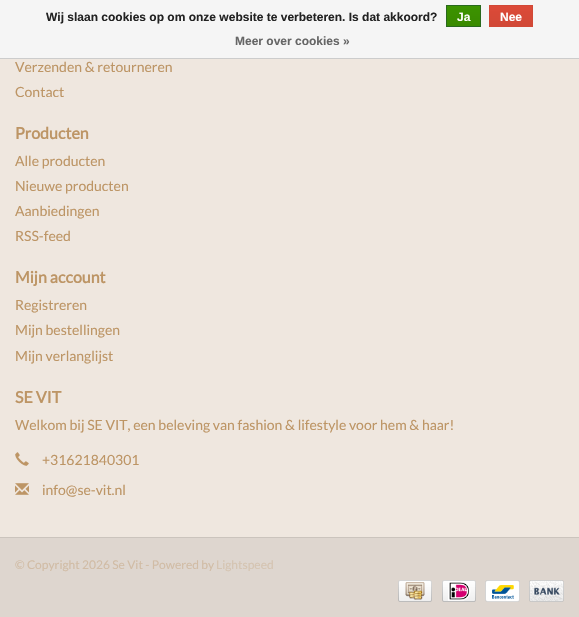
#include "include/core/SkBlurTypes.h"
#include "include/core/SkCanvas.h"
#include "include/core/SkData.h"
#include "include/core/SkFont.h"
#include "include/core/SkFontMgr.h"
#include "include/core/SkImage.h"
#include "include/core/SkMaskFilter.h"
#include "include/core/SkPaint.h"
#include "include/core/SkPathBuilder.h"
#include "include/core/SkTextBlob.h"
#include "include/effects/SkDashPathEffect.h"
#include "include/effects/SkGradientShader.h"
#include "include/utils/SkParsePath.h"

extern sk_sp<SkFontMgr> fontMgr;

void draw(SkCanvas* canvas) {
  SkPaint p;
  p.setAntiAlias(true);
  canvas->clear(SkColorSetRGB(239, 231, 223));
  p.setColor(SkColorSetRGB(245, 245, 245));
  canvas->drawRect(SkRect::MakeLTRB(0, 0, 579, 58), p);
  p.setColor(SkColorSetRGB(204, 204, 204));
  canvas->drawRect(SkRect::MakeLTRB(0, 58, 579, 59), p);
  {
    const SkColor colors[] = {SkColorSetRGB(60, 147, 0), SkColorSetRGB(57, 138, 0)};
    const float stops[] = {0, 1};
    const SkPoint ends[] = {{464, 6}, {464, 26}};
    p.setShader(SkGradientShader::MakeLinear(ends, colors, stops, 2, SkTileMode::kClamp));
    p.setAlpha(255);
  }
  canvas->drawRect(SkRect::MakeLTRB(447, 6, 480, 26), p);
  p.setStyle(SkPaint::kStroke_Style);
  p.setStrokeWidth(1);
  p.setShader(nullptr);
  p.setColor(SkColorSetRGB(41, 105, 29));
  canvas->drawRect(SkRect::MakeLTRB(446.5f, 5.5f, 480.5f, 26.5f), p);
  p.setStyle(SkPaint::kFill_Style);
  {
    const SkColor colors[] = {SkColorSetRGB(220, 74, 56), SkColorSetRGB(209, 72, 54)};
    const float stops[] = {0, 1};
    const SkPoint ends[] = {{511, 6}, {511, 26}};
    p.setShader(SkGradientShader::MakeLinear(ends, colors, stops, 2, SkTileMode::kClamp));
    p.setAlpha(255);
  }
  canvas->drawRect(SkRect::MakeLTRB(490, 6, 532, 26), p);
  p.setStyle(SkPaint::kStroke_Style);
  p.setShader(nullptr);
  p.setColor(SkColorSetRGB(209, 72, 54));
  canvas->drawRect(SkRect::MakeLTRB(489.5f, 5.5f, 532.5f, 26.5f), p);
  canvas->drawImageRect(SkImages::DeferredFromEncodedData(SkData::MakeFromFileName("images/1.png")), SkRect::MakeLTRB(15, 452, 29, 466), SkSamplingOptions());
  canvas->drawImageRect(SkImages::DeferredFromEncodedData(SkData::MakeFromFileName("images/2.png")), SkRect::MakeLTRB(15, 483, 29, 495), SkSamplingOptions());
  p.setStyle(SkPaint::kFill_Style);
  p.setColor(SkColorSetRGB(203, 196, 189));
  canvas->drawRect(SkRect::MakeLTRB(0, 537, 579, 538), p);
  p.setColor(SkColorSetRGB(222, 214, 207));
  canvas->drawRect(SkRect::MakeLTRB(0, 538, 579, 617), p);
  canvas->drawImageRect(SkImages::DeferredFromEncodedData(SkData::MakeFromFileName("images/3.png")), SkRect::MakeLTRB(398, 580, 432, 602), SkSamplingOptions());
  canvas->drawImageRect(SkImages::DeferredFromEncodedData(SkData::MakeFromFileName("images/4.png")), SkRect::MakeLTRB(442, 580, 476, 602), SkSamplingOptions());
  canvas->drawImageRect(SkImages::DeferredFromEncodedData(SkData::MakeFromFileName("images/5.png")), SkRect::MakeLTRB(485, 580, 520, 602), SkSamplingOptions());
  canvas->drawImageRect(SkImages::DeferredFromEncodedData(SkData::MakeFromFileName("images/6.png")), SkRect::MakeLTRB(529, 580, 564, 602), SkSamplingOptions());
  SkFont font1(fontMgr->matchFamilyStyle("Liberation Sans", SkFontStyle::Bold()), 12);
  font1.setSubpixel(true);
  p.setColor(SkColorSetRGB(34, 34, 34));
  canvas->drawString("Wij slaan cookies op om onze website te verbeteren. Is dat akkoord?", 46, 21, font1, p);
  p.setColor(SK_ColorWHITE);
  canvas->drawString("Ja", 457, 21, font1, p);
  canvas->drawString("Nee", 500, 21, font1, p);
  p.setColor(SkColorSetRGB(102, 102, 102));
  canvas->drawString("Meer over cookies »", 235, 45, font1, p);
  SkFont font2(fontMgr->matchFamilyStyle("Lato", SkFontStyle::Normal()), 14);
  font2.setSubpixel(true);
  p.setColor(SkColorSetRGB(189, 149, 101));
  canvas->drawString("Verzenden & retourneren", 15, 72, font2, p);
  canvas->drawString("Contact", 15, 97, font2, p);
  SkFont font3(fontMgr->matchFamilyStyle("Lato", SkFontStyle::Bold()), 16);
  font3.setSubpixel(true);
  canvas->drawString("Producten", 15, 139, font3, p);
  canvas->drawString("Alle producten", 15, 166, font2, p);
  canvas->drawString("Nieuwe producten", 15, 191, font2, p);
  canvas->drawString("Aanbiedingen", 15, 216, font2, p);
  canvas->drawString("RSS-feed", 15, 241, font2, p);
  canvas->drawString("Mijn account", 15, 283, font3, p);
  canvas->drawString("Registreren", 15, 310, font2, p);
  canvas->drawString("Mijn bestellingen", 15, 335, font2, p);
  canvas->drawString("Mijn verlanglijst", 15, 361, font2, p);
  canvas->drawString("SE VIT", 15, 403, font3, p);
  canvas->drawString("Welkom bij SE VIT, een beleving van fashion & lifestyle voor hem & haar!", 15, 430, font2, p);
  canvas->drawString("+31621840301", 42, 465, font2, p);
  canvas->drawString("info@se-vit.nl", 42, 495, font2, p);
  SkFont font4(fontMgr->matchFamilyStyle("Lato", SkFontStyle::Normal()), 12);
  font4.setSubpixel(true);
  p.setColor(SkColorSetRGB(209, 188, 165));
  canvas->drawString("© Copyright 2026 Se Vit - Powered by", 15, 569, font4, p);
  p.setColor(SkColorSetRGB(213, 196, 177));
  canvas->drawString("Lightspeed", 216, 569, font4, p);
}
